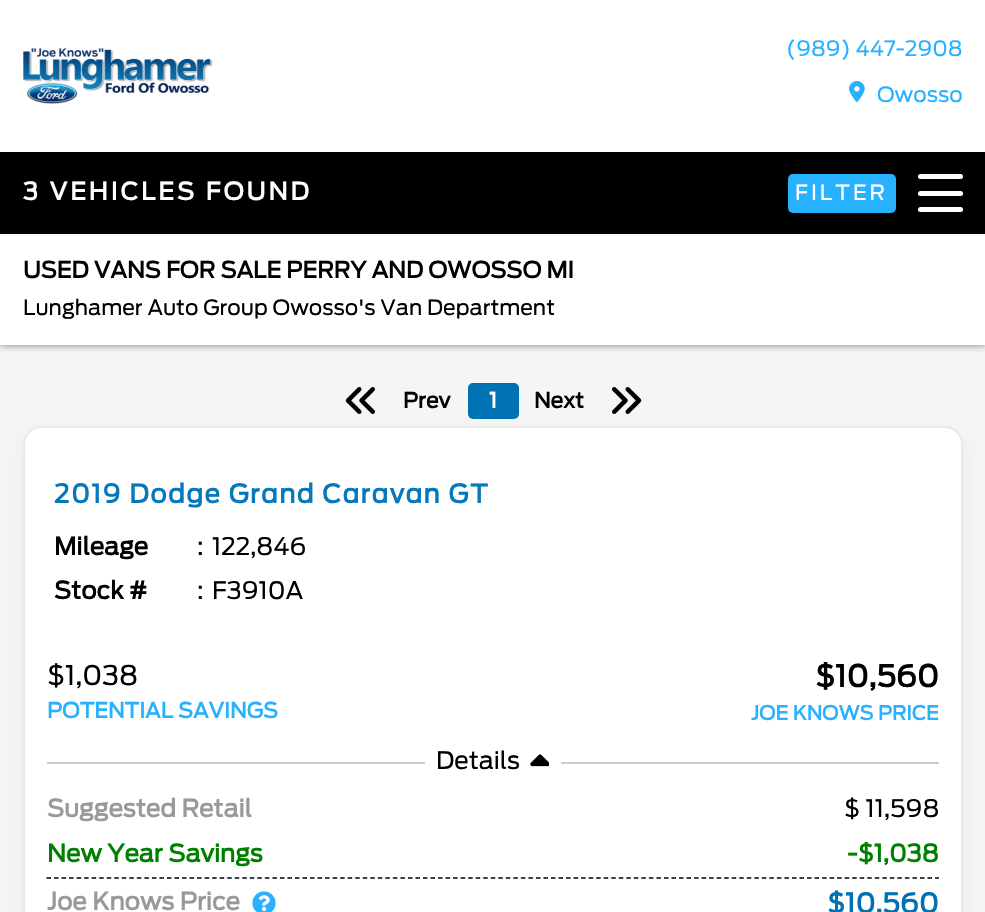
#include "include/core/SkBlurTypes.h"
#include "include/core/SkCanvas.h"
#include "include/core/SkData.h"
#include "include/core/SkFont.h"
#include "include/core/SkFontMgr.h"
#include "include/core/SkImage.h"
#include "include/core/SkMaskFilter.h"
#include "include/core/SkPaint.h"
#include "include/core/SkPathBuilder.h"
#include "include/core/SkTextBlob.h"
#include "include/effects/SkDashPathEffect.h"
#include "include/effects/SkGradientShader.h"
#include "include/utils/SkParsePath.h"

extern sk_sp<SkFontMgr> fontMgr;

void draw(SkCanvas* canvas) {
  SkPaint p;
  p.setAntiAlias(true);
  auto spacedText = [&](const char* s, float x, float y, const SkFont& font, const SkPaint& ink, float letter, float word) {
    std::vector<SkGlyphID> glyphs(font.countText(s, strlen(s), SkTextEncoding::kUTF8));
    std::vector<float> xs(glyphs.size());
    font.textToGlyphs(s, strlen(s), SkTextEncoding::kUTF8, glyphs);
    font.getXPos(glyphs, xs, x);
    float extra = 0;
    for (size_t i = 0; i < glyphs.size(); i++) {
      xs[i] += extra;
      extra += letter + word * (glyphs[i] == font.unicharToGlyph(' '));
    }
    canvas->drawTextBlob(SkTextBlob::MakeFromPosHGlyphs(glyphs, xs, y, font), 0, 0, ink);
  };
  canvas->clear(SK_ColorWHITE);
  canvas->drawImageRect(SkImages::DeferredFromEncodedData(SkData::MakeFromFileName("images/1.png")), SkRect::MakeLTRB(23, 48, 213, 104), SkSamplingOptions());
  canvas->drawImageRect(SkImages::DeferredFromEncodedData(SkData::MakeFromFileName("images/2.png")), SkRect::MakeLTRB(849, 81, 865, 102), SkSamplingOptions());
  p.setColor(SkColorSetRGB(245, 245, 245));
  canvas->drawRect(SkRect::MakeLTRB(0, 345, 985, 912), p);
  canvas->save();
  canvas->clipRect(SkRect::MakeLTRB(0, 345, 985, 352));
  p.setColor(SkColorSetARGB(128, 0, 0, 0));
  p.setMaskFilter(SkMaskFilter::MakeBlur(kNormal_SkBlurStyle, 4));
  canvas->drawRect(SkRect::MakeLTRB(0, 234, 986, 345), p);
  p.setMaskFilter(nullptr);
  canvas->restore();
  p.setColor(SK_ColorBLACK);
  canvas->drawRect(SkRect::MakeLTRB(0, 152, 985, 234), p);
  p.setColor(SkColorSetRGB(40, 177, 255));
  canvas->drawRoundRect(SkRect::MakeLTRB(788, 174, 896, 213), 5, 5, p);
  p.setColor(SK_ColorWHITE);
  canvas->drawRoundRect(SkRect::MakeLTRB(918, 174, 963, 179), 2.5f, 2.5f, p);
  canvas->drawRoundRect(SkRect::MakeLTRB(918, 191, 963, 196), 2.5f, 2.5f, p);
  canvas->drawRoundRect(SkRect::MakeLTRB(918, 207, 963, 212), 2.5f, 2.5f, p);
  p.setColor(SkColorSetRGB(0, 113, 178));
  canvas->drawRoundRect(SkRect::MakeLTRB(468, 383, 519, 419), 5, 5, p);
  p.setColor(SkColorSetARGB(13, 0, 0, 0));
  p.setMaskFilter(SkMaskFilter::MakeBlur(kNormal_SkBlurStyle, 7.5f));
  canvas->drawRoundRect(SkRect::MakeLTRB(23, 435, 963, 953), 18, 18, p);
  p.setMaskFilter(nullptr);
  canvas->drawImageRect(SkImages::DeferredFromEncodedData(SkData::MakeFromFileName("images/3.png")), SkRect::MakeLTRB(345, 387, 375, 414), SkSamplingOptions());
  canvas->drawImageRect(SkImages::DeferredFromEncodedData(SkData::MakeFromFileName("images/4.png")), SkRect::MakeLTRB(612, 387, 642, 414), SkSamplingOptions());
  p.setColor(SK_ColorWHITE);
  canvas->drawRoundRect(SkRect::MakeLTRB(23, 426, 963, 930), 18, 18, p);
  p.setStyle(SkPaint::kStroke_Style);
  p.setStrokeWidth(2);
  p.setColor(SkColorSetARGB(26, 36, 39, 44));
  canvas->drawRoundRect(SkRect::MakeLTRB(24, 427, 962, 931), 17, 17, p);
  p.setStyle(SkPaint::kFill_Style);
  p.setColor(SkColorSetRGB(204, 204, 204));
  canvas->drawRect(SkRect::MakeLTRB(47, 762, 939, 764), p);
  p.setColor(SK_ColorWHITE);
  canvas->drawRect(SkRect::MakeLTRB(425, 762, 561, 764), p);
  canvas->drawImageRect(SkImages::DeferredFromEncodedData(SkData::MakeFromFileName("images/5.png")), SkRect::MakeLTRB(530, 754, 549, 767), SkSamplingOptions());
  p.setStyle(SkPaint::kStroke_Style);
  p.setStrokeWidth(1.5f);
  p.setColor(SK_ColorBLACK);
  p.setPathEffect(SkDashPathEffect::Make({{4.5f, 3.03f}}, 0));
  canvas->drawPath(SkPathBuilder().moveTo(46.5f, 878).lineTo(939, 878).detach(), p);
  p.setPathEffect(nullptr);
  canvas->drawImageRect(SkImages::DeferredFromEncodedData(SkData::MakeFromFileName("images/6.png")), SkRect::MakeLTRB(252, 891, 276, 912), SkSamplingOptions());
  SkFont font1(fontMgr->matchFamilyStyle("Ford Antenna", SkFontStyle::Normal()), 21);
  font1.setSubpixel(true);
  p.setStyle(SkPaint::kFill_Style);
  p.setColor(SkColorSetRGB(40, 177, 255));
  canvas->drawString("(989) 447-2908", 786, 56, font1, p);
  canvas->drawString("Owosso", 877, 102, font1, p);
  SkFont font2(fontMgr->matchFamilyStyle("Ford Antenna", SkFontStyle::Bold()), 24);
  font2.setSubpixel(true);
  p.setColor(SK_ColorWHITE);
  spacedText("3 VEHICLES FOUND", 23, 200, font2, p, 3, 0);
  spacedText("FILTER", 795, 200, font1, p, 3, 0);
  SkFont font3(fontMgr->matchFamilyStyle("Ford Antenna", SkFontStyle::Bold()), 22.5f);
  font3.setSubpixel(true);
  p.setColor(SK_ColorBLACK);
  canvas->drawString("USED VANS FOR SALE PERRY AND OWOSSO MI", 23, 278, font3, p);
  canvas->drawString("Lunghamer Auto Group Owosso's Van Department", 23, 315, font1, p);
  SkFont font4(fontMgr->matchFamilyStyle("Ford Antenna", SkFontStyle::Bold()), 21);
  font4.setSubpixel(true);
  canvas->drawString("Prev", 403, 408, font4, p);
  p.setColor(SK_ColorWHITE);
  canvas->drawString("1", 489, 408, font4, p);
  p.setColor(SK_ColorBLACK);
  canvas->drawString("Next", 534, 408, font4, p);
  SkFont font5(fontMgr->matchFamilyStyle("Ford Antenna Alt", SkFontStyle::Bold()), 25.5f);
  font5.setSubpixel(true);
  p.setColor(SkColorSetRGB(6, 120, 188));
  spacedText("2019 Dodge Grand Caravan GT", 54, 503, font5, p, 1.5f, 0);
  p.setColor(SK_ColorBLACK);
  canvas->drawString("Mileage", 54, 555, font2, p);
  SkFont font6(fontMgr->matchFamilyStyle("Ford Antenna", SkFontStyle::Normal()), 24);
  font6.setSubpixel(true);
  canvas->drawString(":", 197, 555, font6, p);
  canvas->drawString("122,846", 212, 555, font6, p);
  canvas->drawString("Stock #", 54, 599, font2, p);
  canvas->drawString(":", 197, 599, font6, p);
  canvas->drawString("F3910A", 212, 599, font6, p);
  SkFont font7(fontMgr->matchFamilyStyle("Ford Antenna", SkFontStyle::Normal()), 27);
  font7.setSubpixel(true);
  canvas->drawString("$1,038", 47, 685, font7, p);
  p.setColor(SkColorSetRGB(40, 177, 255));
  canvas->drawString("POTENTIAL SAVINGS", 47, 718, font4, p);
  SkFont font8(fontMgr->matchFamilyStyle("Ford Antenna", SkFontStyle::Bold()), 30);
  font8.setSubpixel(true);
  p.setColor(SK_ColorBLACK);
  canvas->drawString("$10,560", 815, 687, font8, p);
  SkFont font9(fontMgr->matchFamilyStyle("Ford Antenna", SkFontStyle::Bold()), 19.5f);
  font9.setSubpixel(true);
  p.setColor(SkColorSetRGB(40, 177, 255));
  canvas->drawString("JOE KNOWS PRICE", 751, 720, font9, p);
  p.setColor(SK_ColorBLACK);
  canvas->drawString("Details", 436, 769, font6, p);
  p.setColor(SkColorSetRGB(153, 153, 153));
  canvas->drawString("Suggested Retail", 47, 817, font2, p);
  p.setColor(SK_ColorBLACK);
  canvas->drawString("$ 11,598", 844, 817, font6, p);
  p.setColor(SkColorSetRGB(0, 128, 0));
  canvas->drawString("New Year Savings", 47, 862, font2, p);
  canvas->drawString("-$1,038", 847, 862, font2, p);
  p.setColor(SkColorSetRGB(153, 153, 153));
  canvas->drawString("Joe Knows Price", 47, 910, font2, p);
  SkFont font10(fontMgr->matchFamilyStyle("Ford Antenna", SkFontStyle::Bold()), 27);
  font10.setSubpixel(true);
  p.setColor(SkColorSetRGB(0, 113, 178));
  canvas->drawString("$10,560", 827, 913, font10, p);
}
